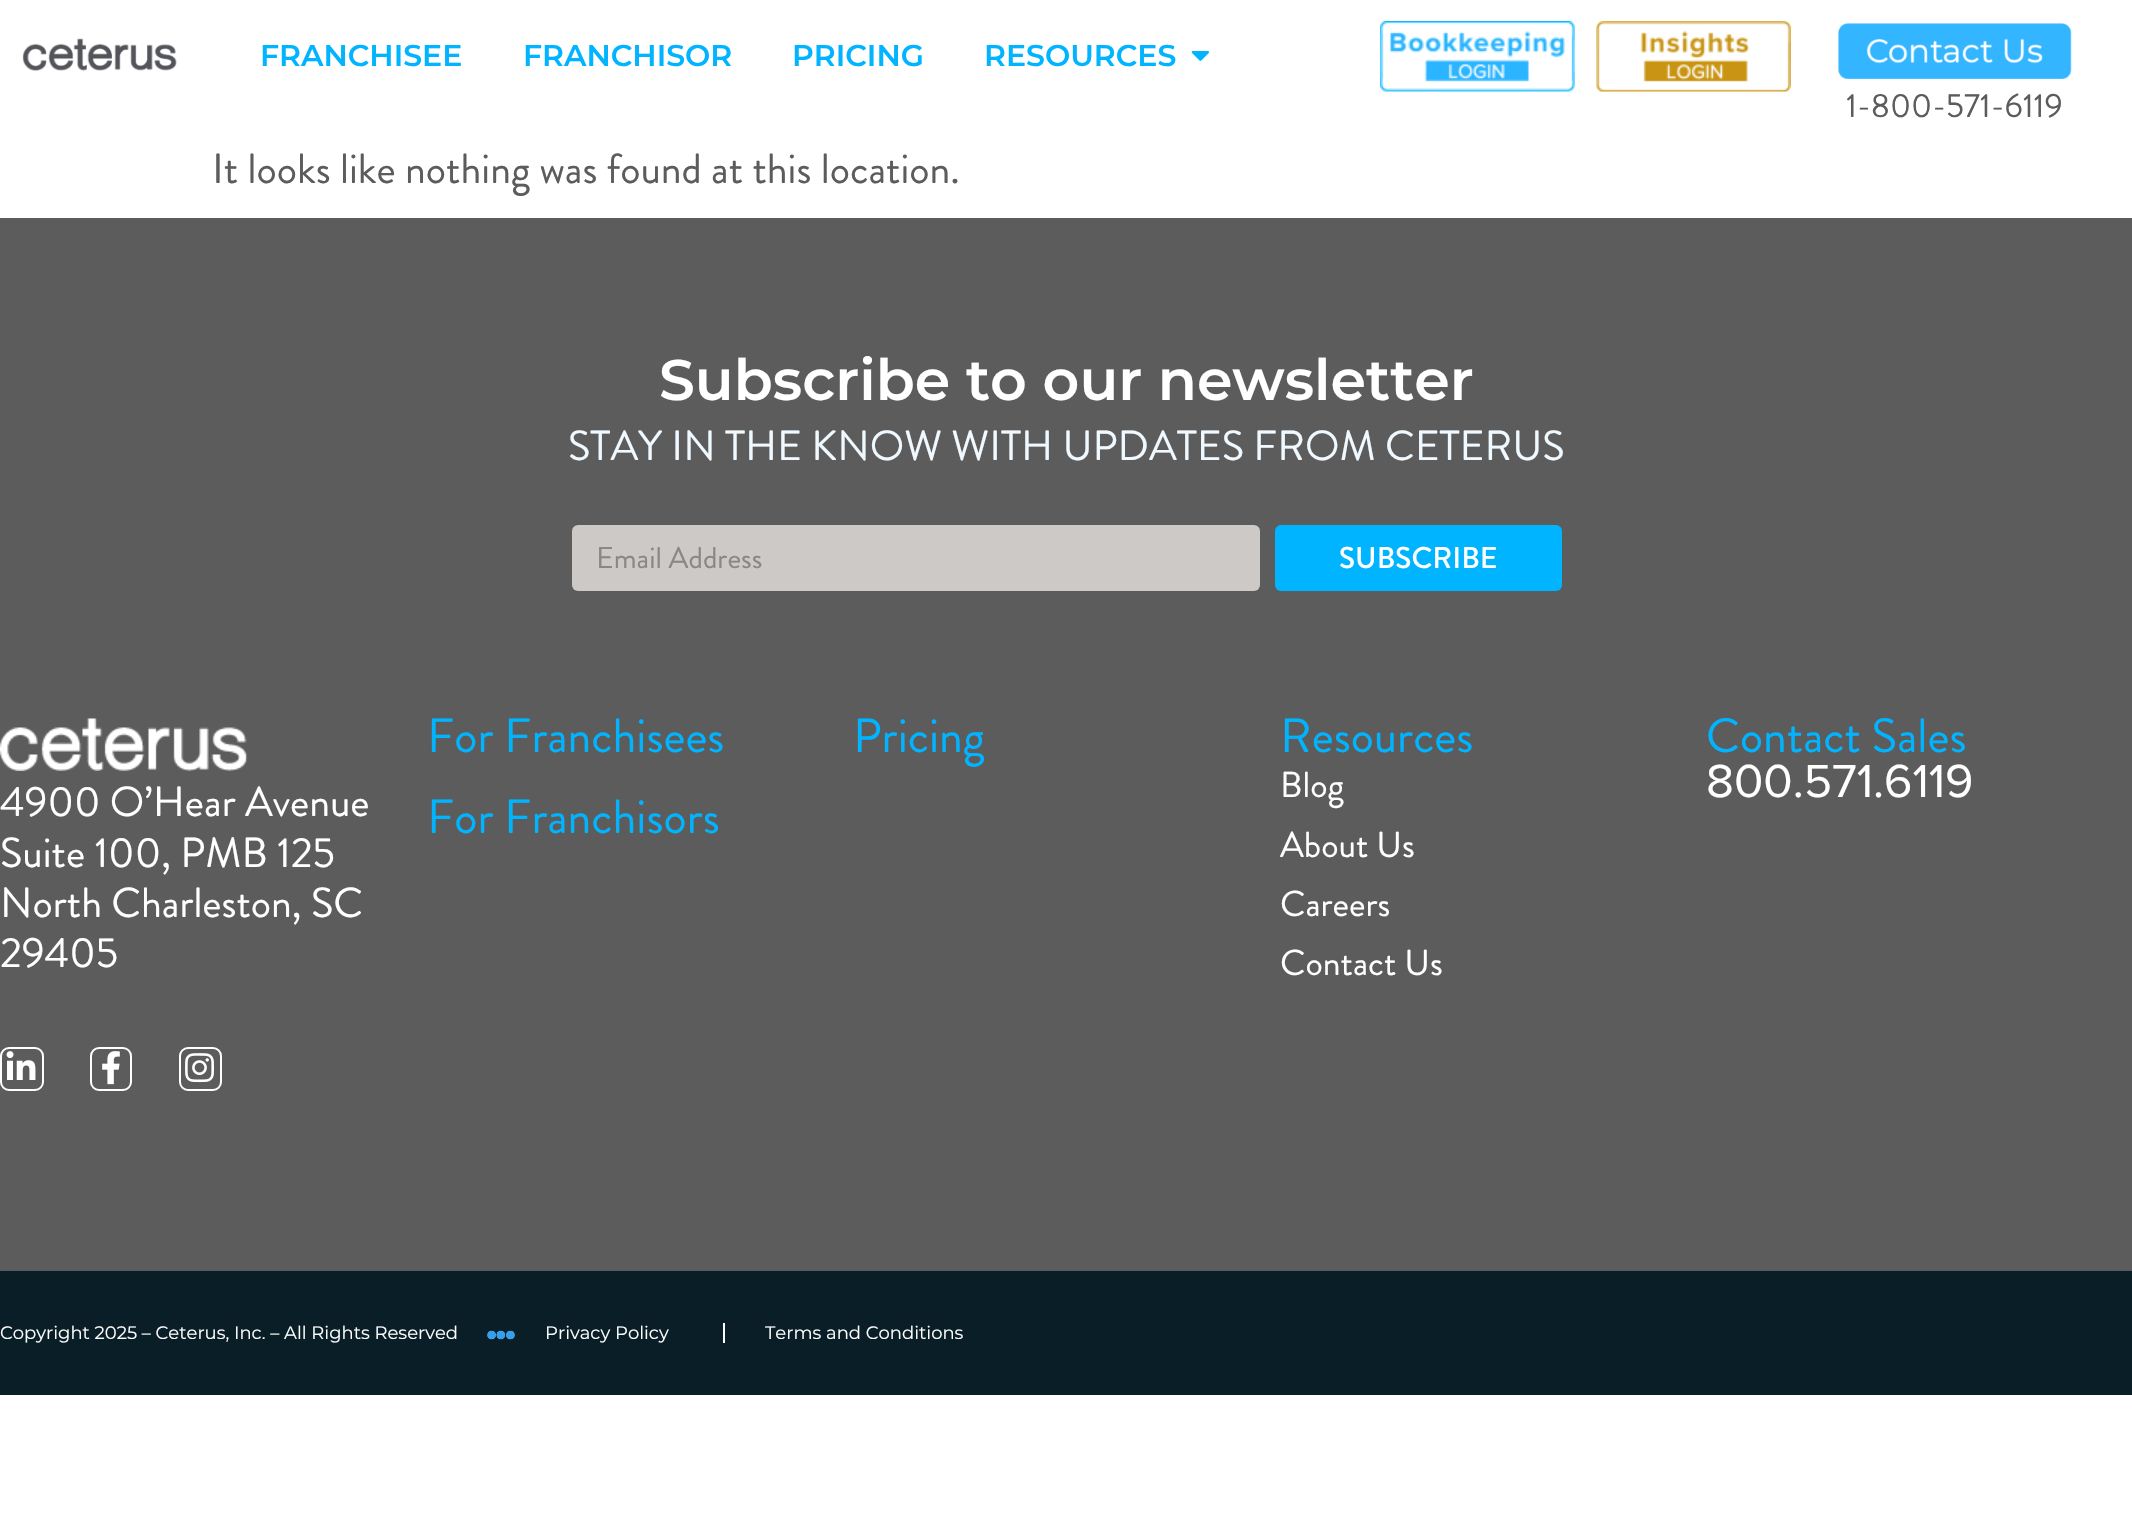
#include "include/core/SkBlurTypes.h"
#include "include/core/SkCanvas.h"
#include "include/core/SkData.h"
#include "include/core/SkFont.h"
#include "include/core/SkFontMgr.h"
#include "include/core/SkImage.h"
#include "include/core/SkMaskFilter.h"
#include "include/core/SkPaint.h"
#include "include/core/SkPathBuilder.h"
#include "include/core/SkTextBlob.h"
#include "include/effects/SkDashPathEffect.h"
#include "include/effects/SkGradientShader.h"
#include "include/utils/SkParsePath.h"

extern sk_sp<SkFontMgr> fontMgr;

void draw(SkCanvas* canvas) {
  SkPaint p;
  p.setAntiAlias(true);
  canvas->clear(SK_ColorWHITE);
  canvas->drawImageRect(SkImages::DeferredFromEncodedData(SkData::MakeFromFileName("images/1.png")), SkRect::MakeLTRB(22, 38, 177, 71), SkSamplingOptions());
  canvas->drawImageRect(SkImages::DeferredFromEncodedData(SkData::MakeFromFileName("images/2.png")), SkRect::MakeLTRB(1191, 51, 1210, 61), SkSamplingOptions());
  canvas->drawImageRect(SkImages::DeferredFromEncodedData(SkData::MakeFromFileName("images/3.png")), SkRect::MakeLTRB(1380, 21, 1575, 92), SkSamplingOptions());
  canvas->drawImageRect(SkImages::DeferredFromEncodedData(SkData::MakeFromFileName("images/4.png")), SkRect::MakeLTRB(1596, 21, 1791, 92), SkSamplingOptions());
  canvas->drawImageRect(SkImages::DeferredFromEncodedData(SkData::MakeFromFileName("images/5.png")), SkRect::MakeLTRB(1838, 23, 2072, 79), SkSamplingOptions());
  p.setColor(SkColorSetRGB(92, 92, 92));
  canvas->drawRect(SkRect::MakeLTRB(0, 218, 2132, 1271), p);
  p.setColor(SkColorSetRGB(204, 201, 199));
  canvas->drawRoundRect(SkRect::MakeLTRB(572, 525, 1260, 591), 6, 6, p);
  p.setColor(SkColorSetRGB(0, 180, 255));
  canvas->drawRoundRect(SkRect::MakeLTRB(1275, 525, 1562, 591), 6, 6, p);
  canvas->drawImageRect(SkImages::DeferredFromEncodedData(SkData::MakeFromFileName("images/6.png")), SkRect::MakeLTRB(0, 718, 248, 771), SkSamplingOptions());
  p.setStyle(SkPaint::kStroke_Style);
  p.setStrokeWidth(2);
  p.setColor(SK_ColorWHITE);
  canvas->drawRoundRect(SkRect::MakeLTRB(1, 1048, 43, 1090), 8, 8, p);
  canvas->drawImageRect(SkImages::DeferredFromEncodedData(SkData::MakeFromFileName("images/7.png")), SkRect::MakeLTRB(6, 1051, 36, 1080), SkSamplingOptions());
  canvas->drawRoundRect(SkRect::MakeLTRB(91, 1048, 131, 1090), 8, 8, p);
  canvas->drawImageRect(SkImages::DeferredFromEncodedData(SkData::MakeFromFileName("images/8.png")), SkRect::MakeLTRB(102, 1051, 120, 1085), SkSamplingOptions());
  canvas->drawRoundRect(SkRect::MakeLTRB(180, 1048, 221, 1090), 8, 8, p);
  canvas->drawImageRect(SkImages::DeferredFromEncodedData(SkData::MakeFromFileName("images/9.png")), SkRect::MakeLTRB(185, 1053, 214, 1083), SkSamplingOptions());
  p.setStyle(SkPaint::kFill_Style);
  p.setColor(SkColorSetRGB(10, 30, 39));
  canvas->drawRect(SkRect::MakeLTRB(0, 1271, 2132, 1395), p);
  canvas->drawImageRect(SkImages::DeferredFromEncodedData(SkData::MakeFromFileName("images/10.png")), SkRect::MakeLTRB(487, 1330, 515, 1340), SkSamplingOptions());
  p.setColor(SK_ColorWHITE);
  canvas->drawRect(SkRect::MakeLTRB(723, 1323, 725, 1343), p);
  SkFont font1(fontMgr->matchFamilyStyle("Montserrat", SkFontStyle(600, SkFontStyle::kNormal_Width, SkFontStyle::kUpright_Slant)), 30);
  font1.setSubpixel(true);
  p.setColor(SkColorSetRGB(0, 180, 255));
  canvas->drawString("FRANCHISEE", 260, 66, font1, p);
  canvas->drawString("FRANCHISOR", 523, 66, font1, p);
  canvas->drawString("PRICING", 792, 66, font1, p);
  canvas->drawString("RESOURCES", 984, 66, font1, p);
  SkFont font2(fontMgr->matchFamilyStyle("Brandon Grotesque", SkFontStyle::Normal()), 33.5f);
  font2.setSubpixel(true);
  p.setColor(SkColorSetRGB(92, 92, 92));
  canvas->drawString("1-800-571-6119", 1846, 117, font2, p);
  SkFont font3(fontMgr->matchFamilyStyle("Brandon Grotesque", SkFontStyle::Normal()), 42);
  font3.setSubpixel(true);
  canvas->drawString("It looks like nothing was found at this location.", 212, 183, font3, p);
  SkFont font4(fontMgr->matchFamilyStyle("Montserrat", SkFontStyle(600, SkFontStyle::kNormal_Width, SkFontStyle::kUpright_Slant)), 57);
  font4.setSubpixel(true);
  p.setColor(SK_ColorWHITE);
  canvas->drawString("Subscribe to our newsletter", 659, 400, font4, p);
  p.setColor(SkColorSetRGB(239, 249, 255));
  canvas->drawString("STAY IN THE KNOW WITH UPDATES FROM CETERUS", 568, 460, font3, p);
  SkFont font5(fontMgr->matchFamilyStyle("Brandon Grotesque", SkFontStyle::Normal()), 30);
  font5.setSubpixel(true);
  p.setColor(SkColorSetRGB(137, 136, 135));
  canvas->drawString("Email Address", 596, 568, font5, p);
  SkFont font6(fontMgr->matchFamilyStyle("Brandon Grotesque", SkFontStyle(500, SkFontStyle::kNormal_Width, SkFontStyle::kUpright_Slant)), 30);
  font6.setSubpixel(true);
  p.setColor(SK_ColorWHITE);
  canvas->drawString("SUBSCRIBE", 1339, 568, font6, p);
  canvas->drawString("4900 O’Hear Avenue", 0, 816, font3, p);
  canvas->drawString("Suite 100, PMB 125", 0, 867, font3, p);
  canvas->drawString("North Charleston, SC", 0, 917, font3, p);
  canvas->drawString("29405", 0, 967, font3, p);
  SkFont font7(fontMgr->matchFamilyStyle("Brandon Grotesque", SkFontStyle::Normal()), 48);
  font7.setSubpixel(true);
  p.setColor(SkColorSetRGB(0, 180, 255));
  canvas->drawString("For Franchisees", 427, 752, font7, p);
  canvas->drawString("For Franchisors", 427, 833, font7, p);
  canvas->drawString("Pricing", 853, 752, font7, p);
  canvas->drawString("Resources", 1280, 752, font7, p);
  SkFont font8(fontMgr->matchFamilyStyle("Brandon Grotesque", SkFontStyle::Normal()), 36);
  font8.setSubpixel(true);
  p.setColor(SK_ColorWHITE);
  canvas->drawString("Blog", 1280, 797, font8, p);
  canvas->drawString("About Us", 1280, 857, font8, p);
  canvas->drawString("Careers", 1280, 916, font8, p);
  canvas->drawString("Contact Us", 1280, 975, font8, p);
  p.setColor(SkColorSetRGB(0, 180, 255));
  canvas->drawString("Contact Sales", 1706, 752, font7, p);
  SkFont font9(fontMgr->matchFamilyStyle("Proxima Nova", SkFontStyle::Normal()), 48);
  font9.setSubpixel(true);
  p.setColor(SK_ColorWHITE);
  canvas->drawString("800.571.6119", 1706, 797, font9, p);
  SkFont font10(fontMgr->matchFamilyStyle("Montserrat", SkFontStyle::Normal()), 18);
  font10.setSubpixel(true);
  canvas->drawString("Copyright 2025 – Ceterus, Inc. – All Rights Reserved", 0, 1339, font10, p);
  canvas->drawString("Privacy Policy", 545, 1339, font10, p);
  canvas->drawString("Terms and Conditions", 765, 1339, font10, p);
}
